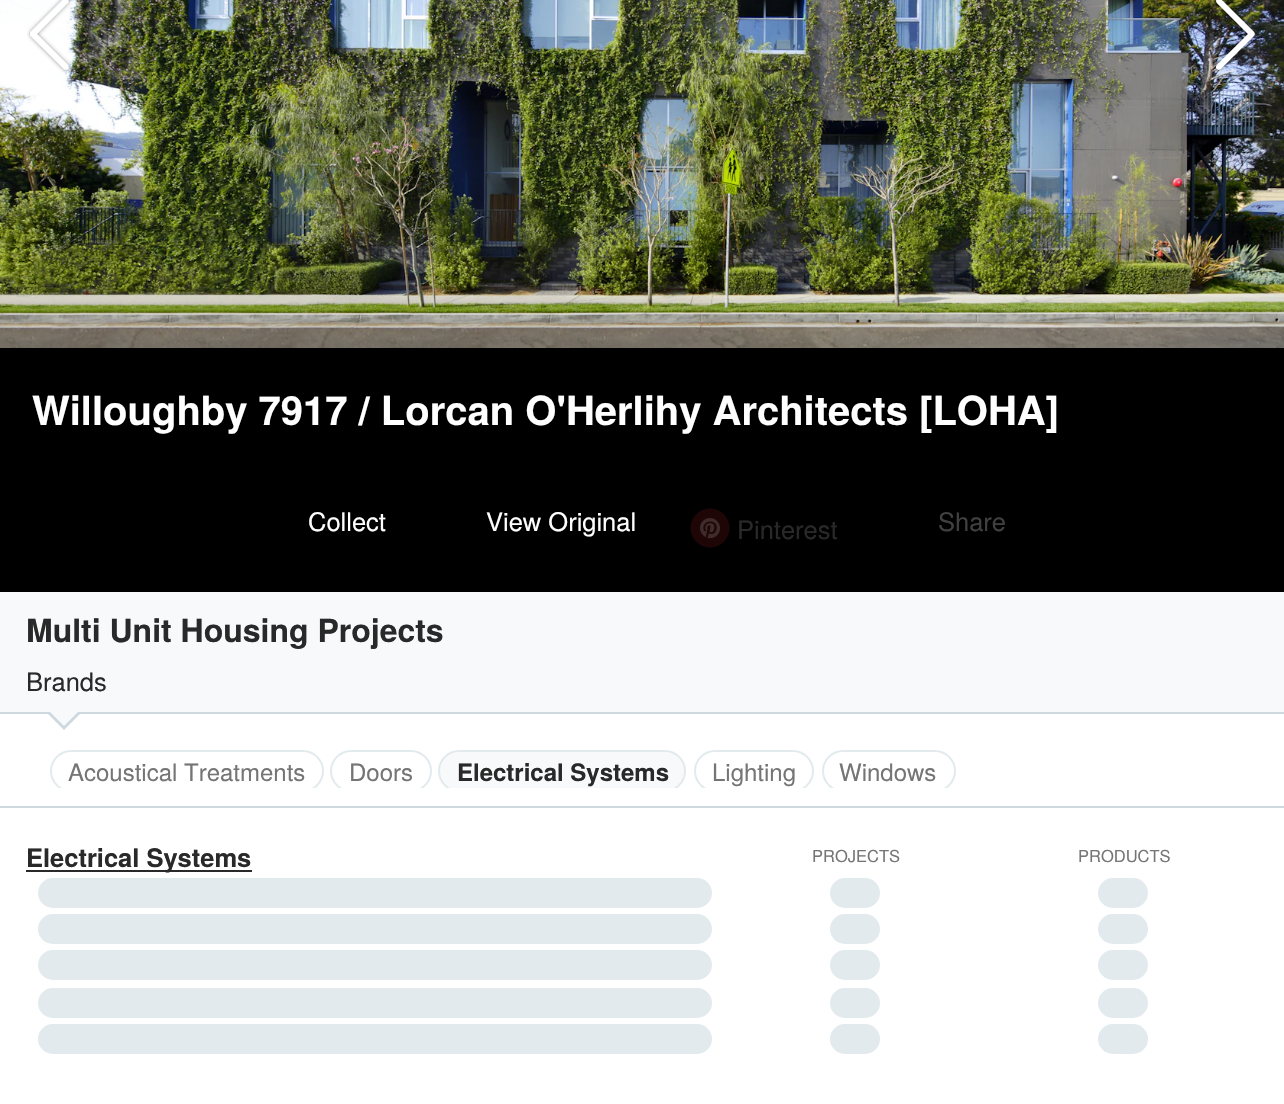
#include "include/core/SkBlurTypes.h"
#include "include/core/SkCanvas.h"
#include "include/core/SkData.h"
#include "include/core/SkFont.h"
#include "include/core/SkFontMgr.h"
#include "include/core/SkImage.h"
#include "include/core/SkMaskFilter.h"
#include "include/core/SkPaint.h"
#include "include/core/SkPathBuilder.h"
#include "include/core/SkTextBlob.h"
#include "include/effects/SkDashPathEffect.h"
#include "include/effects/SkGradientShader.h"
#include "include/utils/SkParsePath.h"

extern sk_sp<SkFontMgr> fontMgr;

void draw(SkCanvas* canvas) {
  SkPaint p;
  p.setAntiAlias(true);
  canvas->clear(SK_ColorWHITE);
  p.setColor(SK_ColorBLACK);
  canvas->drawRect(SkRect::MakeLTRB(0, 348, 1284, 592), p);
  canvas->drawImageRect(SkImages::DeferredFromEncodedData(SkData::MakeFromFileName("images/1.png")), SkRect::MakeLTRB(0, 0, 1284, 348), SkSamplingOptions());
  canvas->drawImageRect(SkImages::DeferredFromEncodedData(SkData::MakeFromFileName("images/2.png")), SkRect::MakeLTRB(27, 0, 72, 73), SkSamplingOptions());
  canvas->drawImageRect(SkImages::DeferredFromEncodedData(SkData::MakeFromFileName("images/3.png")), SkRect::MakeLTRB(1213, 0, 1257, 73), SkSamplingOptions());
  {
    const SkColor colors[] = {SkColorSetARGB(128, 0, 0, 0), SkColorSetARGB(0, 0, 0, 0)};
    const float stops[] = {0, 1};
    const SkPoint ends[] = {{642, 592}, {642, 262}};
    p.setShader(SkGradientShader::MakeLinear(ends, colors, stops, 2, SkTileMode::kClamp));
    p.setAlpha(255);
  }
  canvas->drawRect(SkRect::MakeLTRB(0, 276, 1284, 348), p);
  canvas->drawImageRect(SkImages::DeferredFromEncodedData(SkData::MakeFromFileName("images/4.png")), SkRect::MakeLTRB(690, 508, 730, 548), SkSamplingOptions());
  p.setShader(nullptr);
  p.setColor(SkColorSetRGB(247, 249, 250));
  canvas->drawRect(SkRect::MakeLTRB(0, 592, 1284, 712), p);
  p.setColor(SkColorSetRGB(206, 217, 223));
  canvas->drawRect(SkRect::MakeLTRB(0, 712, 1284, 714), p);
  canvas->drawPath(SkPathBuilder().moveTo(46, 712).lineTo(82, 712).lineTo(64, 730).close().detach(), p);
  p.setColor(SkColorSetRGB(247, 249, 250));
  canvas->drawPath(SkPathBuilder().moveTo(48, 710).lineTo(80, 710).lineTo(64, 726).close().detach(), p);
  canvas->save();
  canvas->clipRect(SkRect::MakeLTRB(50, 738, 1234, 788));
  p.setStyle(SkPaint::kStroke_Style);
  p.setStrokeWidth(2);
  p.setColor(SkColorSetRGB(227, 234, 237));
  canvas->drawRoundRect(SkRect::MakeLTRB(51, 751, 323, 791), 20, 20, p);
  canvas->drawRoundRect(SkRect::MakeLTRB(331, 751, 431, 791), 20, 20, p);
  p.setStyle(SkPaint::kFill_Style);
  p.setColor(SkColorSetRGB(247, 249, 250));
  canvas->drawRoundRect(SkRect::MakeLTRB(439, 751, 685, 791), 20, 20, p);
  p.setStyle(SkPaint::kStroke_Style);
  p.setColor(SkColorSetRGB(227, 234, 237));
  canvas->drawRoundRect(SkRect::MakeLTRB(439, 751, 685, 791), 20, 20, p);
  canvas->drawRoundRect(SkRect::MakeLTRB(695, 751, 813, 791), 20, 20, p);
  canvas->drawRoundRect(SkRect::MakeLTRB(823, 751, 955, 791), 20, 20, p);
  canvas->restore();
  p.setStyle(SkPaint::kFill_Style);
  p.setColor(SkColorSetRGB(206, 217, 223));
  canvas->drawRect(SkRect::MakeLTRB(0, 806, 1284, 808), p);
  p.setColor(SkColorSetRGB(41, 41, 41));
  canvas->drawRect(SkRect::MakeLTRB(26, 870, 252, 872), p);
  p.setColor(SkColorSetRGB(227, 234, 237));
  canvas->drawRoundRect(SkRect::MakeLTRB(38, 878, 712, 908), 15, 15, p);
  canvas->drawRoundRect(SkRect::MakeLTRB(830, 878, 880, 908), 15, 15, p);
  canvas->drawRoundRect(SkRect::MakeLTRB(1098, 878, 1148, 908), 15, 15, p);
  canvas->drawRoundRect(SkRect::MakeLTRB(38, 914, 712, 944), 15, 15, p);
  canvas->drawRoundRect(SkRect::MakeLTRB(830, 914, 880, 944), 15, 15, p);
  canvas->drawRoundRect(SkRect::MakeLTRB(1098, 914, 1148, 944), 15, 15, p);
  canvas->drawRoundRect(SkRect::MakeLTRB(38, 950, 712, 980), 15, 15, p);
  canvas->drawRoundRect(SkRect::MakeLTRB(830, 950, 880, 980), 15, 15, p);
  canvas->drawRoundRect(SkRect::MakeLTRB(1098, 950, 1148, 980), 15, 15, p);
  canvas->drawRoundRect(SkRect::MakeLTRB(38, 988, 712, 1018), 15, 15, p);
  canvas->drawRoundRect(SkRect::MakeLTRB(830, 988, 880, 1018), 15, 15, p);
  canvas->drawRoundRect(SkRect::MakeLTRB(1098, 988, 1148, 1018), 15, 15, p);
  canvas->drawRoundRect(SkRect::MakeLTRB(38, 1024, 712, 1054), 15, 15, p);
  canvas->drawRoundRect(SkRect::MakeLTRB(830, 1024, 880, 1054), 15, 15, p);
  canvas->drawRoundRect(SkRect::MakeLTRB(1098, 1024, 1148, 1054), 15, 15, p);
  SkFont font1(fontMgr->matchFamilyStyle("TeX Gyre Heros", SkFontStyle::Bold()), 40);
  font1.setSubpixel(true);
  p.setColor(SK_ColorWHITE);
  canvas->drawString("Willoughby 7917 / Lorcan O'Herlihy Architects [LOHA]", 32, 425, font1, p);
  SkFont font2(fontMgr->matchFamilyStyle("TeX Gyre Heros", SkFontStyle::Normal()), 25.5f);
  font2.setSubpixel(true);
  canvas->drawString("Collect", 308, 531, font2, p);
  canvas->drawString("View Original", 486, 531, font2, p);
  p.setColor(SkColorSetRGB(41, 41, 41));
  canvas->drawString("Pinterest", 737, 539, font2, p);
  p.setColor(SkColorSetRGB(64, 64, 64));
  canvas->drawString("Share", 938, 531, font2, p);
  SkFont font3(fontMgr->matchFamilyStyle("TeX Gyre Heros", SkFontStyle::Bold()), 32);
  font3.setSubpixel(true);
  p.setColor(SkColorSetRGB(41, 41, 41));
  canvas->drawString("Multi Unit Housing Projects", 26, 642, font3, p);
  canvas->drawString("Brands", 26, 691, font2, p);
  SkFont font4(fontMgr->matchFamilyStyle("TeX Gyre Heros", SkFontStyle::Normal()), 24);
  font4.setSubpixel(true);
  p.setColor(SkColorSetRGB(117, 117, 117));
  canvas->drawString("Acoustical Treatments", 68, 781, font4, p);
  canvas->drawString("Doors", 349, 781, font4, p);
  SkFont font5(fontMgr->matchFamilyStyle("TeX Gyre Heros", SkFontStyle::Bold()), 24);
  font5.setSubpixel(true);
  p.setColor(SkColorSetRGB(41, 41, 41));
  canvas->drawString("Electrical Systems", 457, 781, font5, p);
  p.setColor(SkColorSetRGB(117, 117, 117));
  canvas->drawString("Lighting", 712, 781, font4, p);
  canvas->drawString("Windows", 839, 781, font4, p);
  SkFont font6(fontMgr->matchFamilyStyle("TeX Gyre Heros", SkFontStyle::Bold()), 25.5f);
  font6.setSubpixel(true);
  p.setColor(SkColorSetRGB(41, 41, 41));
  canvas->drawString("Electrical Systems", 26, 867, font6, p);
  SkFont font7(fontMgr->matchFamilyStyle("TeX Gyre Heros", SkFontStyle::Normal()), 16.5f);
  font7.setSubpixel(true);
  p.setColor(SkColorSetRGB(117, 117, 117));
  canvas->drawString("PROJECTS", 812, 862, font7, p);
  canvas->drawString("PRODUCTS", 1078, 862, font7, p);
}
